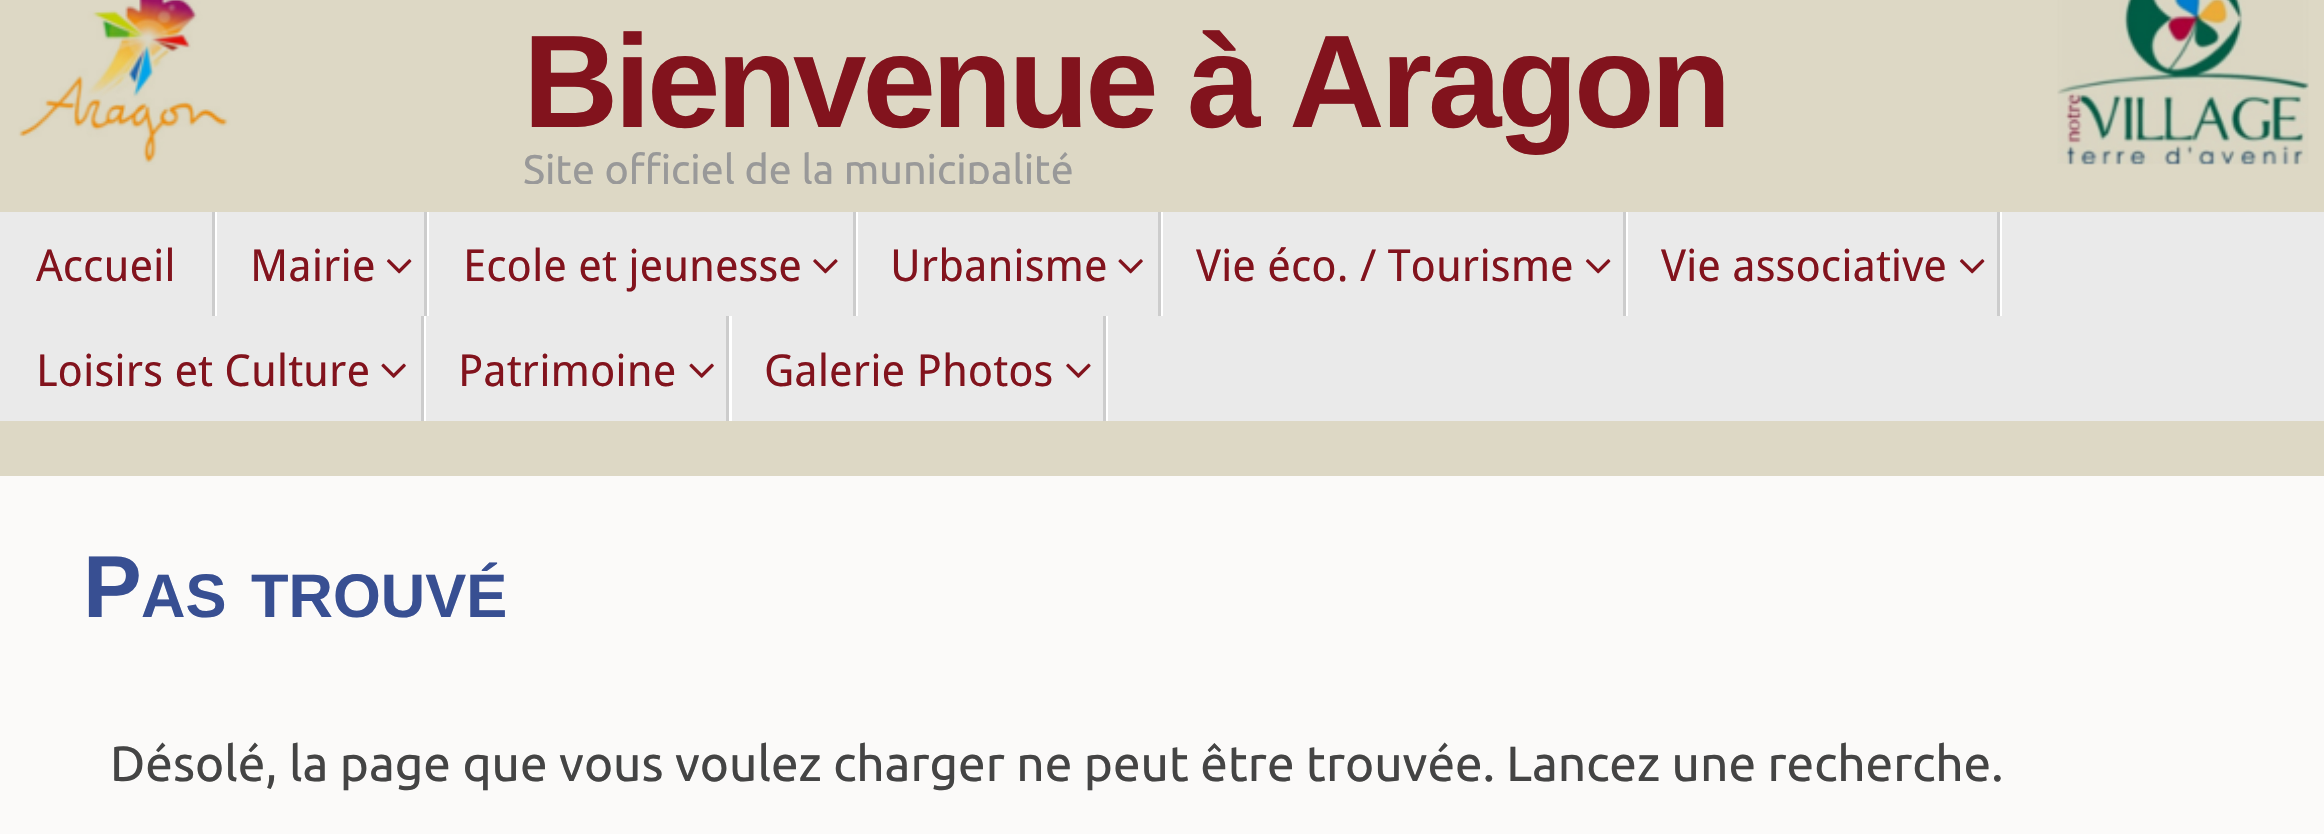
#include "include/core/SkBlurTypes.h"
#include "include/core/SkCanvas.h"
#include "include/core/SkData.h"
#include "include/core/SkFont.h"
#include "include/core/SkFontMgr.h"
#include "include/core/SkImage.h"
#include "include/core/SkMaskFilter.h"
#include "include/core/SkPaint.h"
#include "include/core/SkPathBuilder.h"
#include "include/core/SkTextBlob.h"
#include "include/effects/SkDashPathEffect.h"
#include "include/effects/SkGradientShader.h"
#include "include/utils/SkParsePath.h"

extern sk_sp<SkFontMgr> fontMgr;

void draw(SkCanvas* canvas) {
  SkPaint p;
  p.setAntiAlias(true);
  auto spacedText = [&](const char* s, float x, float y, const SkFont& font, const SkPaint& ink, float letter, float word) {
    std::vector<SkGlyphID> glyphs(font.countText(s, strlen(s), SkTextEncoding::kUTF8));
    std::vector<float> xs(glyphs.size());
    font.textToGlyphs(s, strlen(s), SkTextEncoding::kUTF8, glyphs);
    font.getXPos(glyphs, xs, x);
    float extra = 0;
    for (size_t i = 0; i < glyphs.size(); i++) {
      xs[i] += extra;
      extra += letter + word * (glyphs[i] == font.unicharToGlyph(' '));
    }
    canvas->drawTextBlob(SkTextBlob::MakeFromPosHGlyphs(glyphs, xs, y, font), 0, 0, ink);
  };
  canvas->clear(SkColorSetRGB(221, 216, 197));
  canvas->drawImageRect(SkImages::DeferredFromEncodedData(SkData::MakeFromFileName("images/1.png")), SkRect::MakeLTRB(18, 0, 2309, 165), SkSamplingOptions());
  p.setColor(SkColorSetRGB(234, 234, 234));
  canvas->drawRect(SkRect::MakeLTRB(0, 212, 2324, 421), p);
  p.setColor(SK_ColorWHITE);
  canvas->drawRect(SkRect::MakeLTRB(215, 212, 217, 316), p);
  p.setColor(SkColorSetRGB(204, 204, 204));
  canvas->drawRect(SkRect::MakeLTRB(212, 212, 215, 316), p);
  p.setColor(SK_ColorWHITE);
  canvas->drawRect(SkRect::MakeLTRB(427, 212, 429, 316), p);
  p.setColor(SkColorSetRGB(204, 204, 204));
  canvas->drawRect(SkRect::MakeLTRB(424, 212, 427, 316), p);
  canvas->drawImageRect(SkImages::DeferredFromEncodedData(SkData::MakeFromFileName("images/2.png")), SkRect::MakeLTRB(386, 259, 412, 274), SkSamplingOptions());
  p.setColor(SK_ColorWHITE);
  canvas->drawRect(SkRect::MakeLTRB(856, 212, 858, 316), p);
  p.setColor(SkColorSetRGB(204, 204, 204));
  canvas->drawRect(SkRect::MakeLTRB(853, 212, 856, 316), p);
  canvas->drawImageRect(SkImages::DeferredFromEncodedData(SkData::MakeFromFileName("images/3.png")), SkRect::MakeLTRB(813, 259, 838, 274), SkSamplingOptions());
  p.setColor(SK_ColorWHITE);
  canvas->drawRect(SkRect::MakeLTRB(1161, 212, 1163, 316), p);
  p.setColor(SkColorSetRGB(204, 204, 204));
  canvas->drawRect(SkRect::MakeLTRB(1158, 212, 1161, 316), p);
  canvas->drawImageRect(SkImages::DeferredFromEncodedData(SkData::MakeFromFileName("images/4.png")), SkRect::MakeLTRB(1118, 259, 1143, 274), SkSamplingOptions());
  p.setColor(SK_ColorWHITE);
  canvas->drawRect(SkRect::MakeLTRB(1626, 212, 1628, 316), p);
  p.setColor(SkColorSetRGB(204, 204, 204));
  canvas->drawRect(SkRect::MakeLTRB(1623, 212, 1626, 316), p);
  canvas->drawImageRect(SkImages::DeferredFromEncodedData(SkData::MakeFromFileName("images/2.png")), SkRect::MakeLTRB(1585, 259, 1611, 274), SkSamplingOptions());
  p.setColor(SK_ColorWHITE);
  canvas->drawRect(SkRect::MakeLTRB(2000, 212, 2002, 316), p);
  p.setColor(SkColorSetRGB(204, 204, 204));
  canvas->drawRect(SkRect::MakeLTRB(1997, 212, 2000, 316), p);
  canvas->drawImageRect(SkImages::DeferredFromEncodedData(SkData::MakeFromFileName("images/2.png")), SkRect::MakeLTRB(1959, 259, 1985, 274), SkSamplingOptions());
  p.setColor(SK_ColorWHITE);
  canvas->drawPath(SkPathBuilder().moveTo(3, 316).lineTo(424, 316).lineTo(424, 421).lineTo(3, 421).lineTo(426, 421).lineTo(426, 316).close().detach(), p);
  p.setColor(SkColorSetRGB(204, 204, 204));
  canvas->drawRect(SkRect::MakeLTRB(421, 316, 424, 421), p);
  canvas->drawImageRect(SkImages::DeferredFromEncodedData(SkData::MakeFromFileName("images/5.png")), SkRect::MakeLTRB(381, 363, 406, 378), SkSamplingOptions());
  p.setColor(SK_ColorWHITE);
  canvas->drawPath(SkPathBuilder().moveTo(426, 316).lineTo(729, 316).lineTo(729, 421).lineTo(426, 421).lineTo(732, 421).lineTo(732, 316).close().detach(), p);
  p.setColor(SkColorSetRGB(204, 204, 204));
  canvas->drawRect(SkRect::MakeLTRB(726, 316, 729, 421), p);
  canvas->drawImageRect(SkImages::DeferredFromEncodedData(SkData::MakeFromFileName("images/5.png")), SkRect::MakeLTRB(689, 363, 714, 378), SkSamplingOptions());
  p.setColor(SK_ColorWHITE);
  canvas->drawPath(SkPathBuilder().moveTo(732, 316).lineTo(1106, 316).lineTo(1106, 421).lineTo(732, 421).lineTo(1108, 421).lineTo(1108, 316).close().detach(), p);
  p.setColor(SkColorSetRGB(204, 204, 204));
  canvas->drawRect(SkRect::MakeLTRB(1103, 316, 1106, 421), p);
  canvas->drawImageRect(SkImages::DeferredFromEncodedData(SkData::MakeFromFileName("images/6.png")), SkRect::MakeLTRB(1066, 363, 1091, 378), SkSamplingOptions());
  p.setColor(SkColorSetRGB(251, 250, 249));
  canvas->drawRect(SkRect::MakeLTRB(0, 476, 2324, 834), p);
  SkFont font1(fontMgr->matchFamilyStyle("Liberation Sans", SkFontStyle::Bold()), 132);
  font1.setSubpixel(true);
  p.setColor(SkColorSetRGB(130, 19, 29));
  spacedText("Bienvenue à Aragon", 523, 127, font1, p, -4, 0);
  canvas->save();
  canvas->clipRect(SkRect::MakeLTRB(0, 0, 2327, 184));
  SkFont font2(fontMgr->matchFamilyStyle("Ubuntu", SkFontStyle::Normal()), 41.25f);
  font2.setSubpixel(true);
  p.setColor(SkColorSetRGB(153, 153, 153));
  canvas->drawString("Site officiel de la municipalité", 523, 184, font2, p);
  canvas->restore();
  SkFont font3(fontMgr->matchFamilyStyle("Droid Sans", SkFontStyle::Normal()), 44);
  font3.setSubpixel(true);
  p.setColor(SkColorSetRGB(130, 19, 29));
  canvas->drawString("Accueil", 36, 281, font3, p);
  canvas->drawString("Mairie", 250, 281, font3, p);
  canvas->drawString("Ecole et jeunesse", 463, 281, font3, p);
  canvas->drawString("Urbanisme", 890, 281, font3, p);
  canvas->drawString("Vie éco. / Tourisme", 1196, 281, font3, p);
  canvas->drawString("Vie associative", 1661, 281, font3, p);
  canvas->drawString("Loisirs et Culture", 36, 386, font3, p);
  canvas->drawString("Patrimoine", 458, 386, font3, p);
  canvas->drawString("Galerie Photos", 764, 386, font3, p);
  SkFont font4(fontMgr->matchFamilyStyle("Liberation Sans", SkFontStyle::Bold()), 88);
  font4.setSubpixel(true);
  p.setColor(SkColorSetRGB(56, 79, 146));
  canvas->drawString("P", 83, 617, font4, p);
  SkFont font5(fontMgr->matchFamilyStyle("Liberation Sans", SkFontStyle::Bold()), 61.5f);
  font5.setSubpixel(true);
  canvas->drawString("AS", 141, 617, font5, p);
  canvas->drawString("TROUVÉ", 251, 617, font5, p);
  SkFont font6(fontMgr->matchFamilyStyle("Ubuntu", SkFontStyle::Normal()), 49.5f);
  font6.setSubpixel(true);
  p.setColor(SkColorSetRGB(68, 68, 68));
  canvas->drawString("Désolé, la page que vous voulez charger ne peut être trouvée. Lancez une recherche.", 110, 781, font6, p);
}
